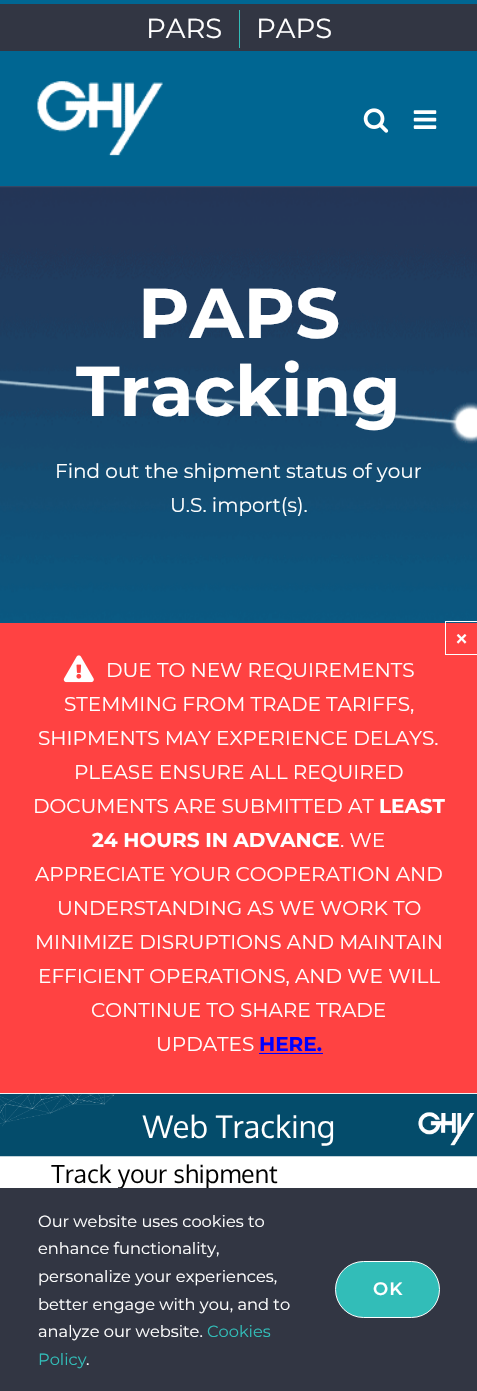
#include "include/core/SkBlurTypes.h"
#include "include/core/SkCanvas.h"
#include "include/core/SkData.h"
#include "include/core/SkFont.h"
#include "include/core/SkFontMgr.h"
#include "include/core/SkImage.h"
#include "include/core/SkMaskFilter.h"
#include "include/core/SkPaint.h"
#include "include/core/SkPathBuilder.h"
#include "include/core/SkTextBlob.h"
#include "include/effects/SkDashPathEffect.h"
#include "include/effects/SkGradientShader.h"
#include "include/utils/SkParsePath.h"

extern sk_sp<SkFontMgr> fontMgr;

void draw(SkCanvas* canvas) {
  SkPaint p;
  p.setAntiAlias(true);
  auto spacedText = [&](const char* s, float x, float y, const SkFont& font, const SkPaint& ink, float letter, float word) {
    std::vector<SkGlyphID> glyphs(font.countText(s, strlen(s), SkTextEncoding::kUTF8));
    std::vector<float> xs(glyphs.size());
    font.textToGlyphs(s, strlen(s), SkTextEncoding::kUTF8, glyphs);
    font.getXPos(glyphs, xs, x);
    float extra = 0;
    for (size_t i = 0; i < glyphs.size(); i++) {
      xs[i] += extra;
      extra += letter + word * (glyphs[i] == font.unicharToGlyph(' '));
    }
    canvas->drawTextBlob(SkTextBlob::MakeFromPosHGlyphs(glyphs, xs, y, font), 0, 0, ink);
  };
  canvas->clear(SK_ColorWHITE);
  p.setColor(SkColorSetRGB(50, 54, 67));
  canvas->drawRect(SkRect::MakeLTRB(0, 4, 477, 51), p);
  p.setColor(SkColorSetRGB(0, 102, 146));
  canvas->drawRect(SkRect::MakeLTRB(0, 0, 477, 4), p);
  p.setColor(SkColorSetRGB(50, 189, 184));
  canvas->drawRect(SkRect::MakeLTRB(239, 10, 240, 48), p);
  p.setColor(SkColorSetRGB(0, 102, 146));
  canvas->drawRect(SkRect::MakeLTRB(0, 51, 477, 186), p);
  canvas->drawImageRect(SkImages::DeferredFromEncodedData(SkData::MakeFromFileName("images/1.png")), SkRect::MakeLTRB(37, 81, 163, 156), SkSamplingOptions());
  canvas->drawImageRect(SkImages::DeferredFromEncodedData(SkData::MakeFromFileName("images/2.png")), SkRect::MakeLTRB(363, 108, 389, 133), SkSamplingOptions());
  canvas->drawImageRect(SkImages::DeferredFromEncodedData(SkData::MakeFromFileName("images/3.png")), SkRect::MakeLTRB(413, 110, 437, 129), SkSamplingOptions());
  canvas->drawImageRect(SkImages::DeferredFromEncodedData(SkData::MakeFromFileName("images/4.png")), SkRect::MakeLTRB(0, 186, 477, 623), SkSamplingOptions());
  p.setColor(SkColorSetRGB(255, 66, 66));
  canvas->drawRect(SkRect::MakeLTRB(0, 623, 477, 1093), p);
  p.setStyle(SkPaint::kStroke_Style);
  p.setStrokeWidth(1);
  p.setColor(SK_ColorWHITE);
  canvas->drawRect(SkRect::MakeLTRB(445.5f, 621.5f, 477.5f, 654.5f), p);
  canvas->drawImageRect(SkImages::DeferredFromEncodedData(SkData::MakeFromFileName("images/5.png")), SkRect::MakeLTRB(63, 655, 94, 683), SkSamplingOptions());
  p.setStyle(SkPaint::kFill_Style);
  p.setColor(SkColorSetRGB(0, 0, 255));
  canvas->drawRect(SkRect::MakeLTRB(259, 1053, 323, 1054), p);
  canvas->drawImageRect(SkImages::DeferredFromEncodedData(SkData::MakeFromFileName("images/6.png")), SkRect::MakeLTRB(0, 1093, 477, 1188), SkSamplingOptions());
  p.setColor(SkColorSetRGB(50, 54, 67));
  canvas->drawRect(SkRect::MakeLTRB(0, 1188, 477, 1391), p);
  p.setColor(SkColorSetRGB(50, 189, 184));
  canvas->drawRoundRect(SkRect::MakeLTRB(335.5f, 1261.5f, 439.5f, 1317.5f), 28, 28, p);
  p.setStyle(SkPaint::kStroke_Style);
  p.setColor(SK_ColorWHITE);
  canvas->drawRoundRect(SkRect::MakeLTRB(335.5f, 1261.5f, 439.5f, 1317.5f), 28, 28, p);
  SkFont font1(fontMgr->matchFamilyStyle("Montserrat", SkFontStyle::Normal()), 27.5f);
  font1.setSubpixel(true);
  p.setStyle(SkPaint::kFill_Style);
  canvas->drawString("PARS", 146, 38, font1, p);
  canvas->drawString("PAPS", 256, 38, font1, p);
  SkFont font2(fontMgr->matchFamilyStyle("Montserrat", SkFontStyle::Bold()), 70.5f);
  font2.setSubpixel(true);
  canvas->drawString("PAPS", 138, 338, font2, p);
  canvas->drawString("Tracking", 76, 416, font2, p);
  SkFont font3(fontMgr->matchFamilyStyle("Montserrat", SkFontStyle::Normal()), 20);
  font3.setSubpixel(true);
  canvas->drawString("Find out the shipment status of your", 55, 478, font3, p);
  canvas->drawString("U.S. import(s).", 170, 512, font3, p);
  SkFont font4(fontMgr->matchFamilyStyle("Liberation Sans", SkFontStyle::Bold()), 19);
  font4.setSubpixel(true);
  canvas->drawString("×", 456, 645, font4, p);
  canvas->drawString("DUE TO NEW REQUIREMENTS", 106, 677, font3, p);
  canvas->drawString("STEMMING FROM TRADE TARIFFS,", 64, 711, font3, p);
  canvas->drawString("SHIPMENTS MAY EXPERIENCE DELAYS.", 38, 745, font3, p);
  canvas->drawString("PLEASE ENSURE ALL REQUIRED", 74, 779, font3, p);
  canvas->drawString("DOCUMENTS ARE SUBMITTED AT", 33, 813, font3, p);
  SkFont font5(fontMgr->matchFamilyStyle("Montserrat", SkFontStyle::Bold()), 20);
  font5.setSubpixel(true);
  canvas->drawString("LEAST", 379, 813, font5, p);
  canvas->drawString("24 HOURS IN ADVANCE", 92, 847, font5, p);
  canvas->drawString(". WE", 340, 847, font3, p);
  canvas->drawString("APPRECIATE YOUR COOPERATION AND", 35, 881, font3, p);
  canvas->drawString("UNDERSTANDING AS WE WORK TO", 57, 915, font3, p);
  canvas->drawString("MINIMIZE DISRUPTIONS AND MAINTAIN", 35, 949, font3, p);
  canvas->drawString("EFFICIENT OPERATIONS, AND WE WILL", 38, 983, font3, p);
  canvas->drawString("CONTINUE TO SHARE TRADE", 91, 1017, font3, p);
  canvas->drawString("UPDATES", 156, 1051, font3, p);
  p.setColor(SkColorSetRGB(0, 0, 255));
  canvas->drawString("HERE.", 259, 1051, font5, p);
  SkFont font6(fontMgr->matchFamilyStyle("Montserrat", SkFontStyle::Normal()), 16.25f);
  font6.setSubpixel(true);
  p.setColor(SK_ColorWHITE);
  canvas->drawString("Our website uses cookies to", 38, 1227, font6, p);
  canvas->drawString("enhance functionality,", 38, 1254, font6, p);
  canvas->drawString("personalize your experiences,", 38, 1282, font6, p);
  canvas->drawString("better engage with you, and to", 38, 1310, font6, p);
  canvas->drawString("analyze our website.", 38, 1337, font6, p);
  p.setColor(SkColorSetRGB(50, 189, 184));
  canvas->drawString("Cookies", 207, 1337, font6, p);
  canvas->drawString("Policy", 38, 1365, font6, p);
  p.setColor(SK_ColorWHITE);
  canvas->drawString(".", 86, 1365, font6, p);
  SkFont font7(fontMgr->matchFamilyStyle("Montserrat", SkFontStyle(600, SkFontStyle::kNormal_Width, SkFontStyle::kUpright_Slant)), 18);
  font7.setSubpixel(true);
  spacedText("OK", 373, 1295, font7, p, 1, 0);
}
